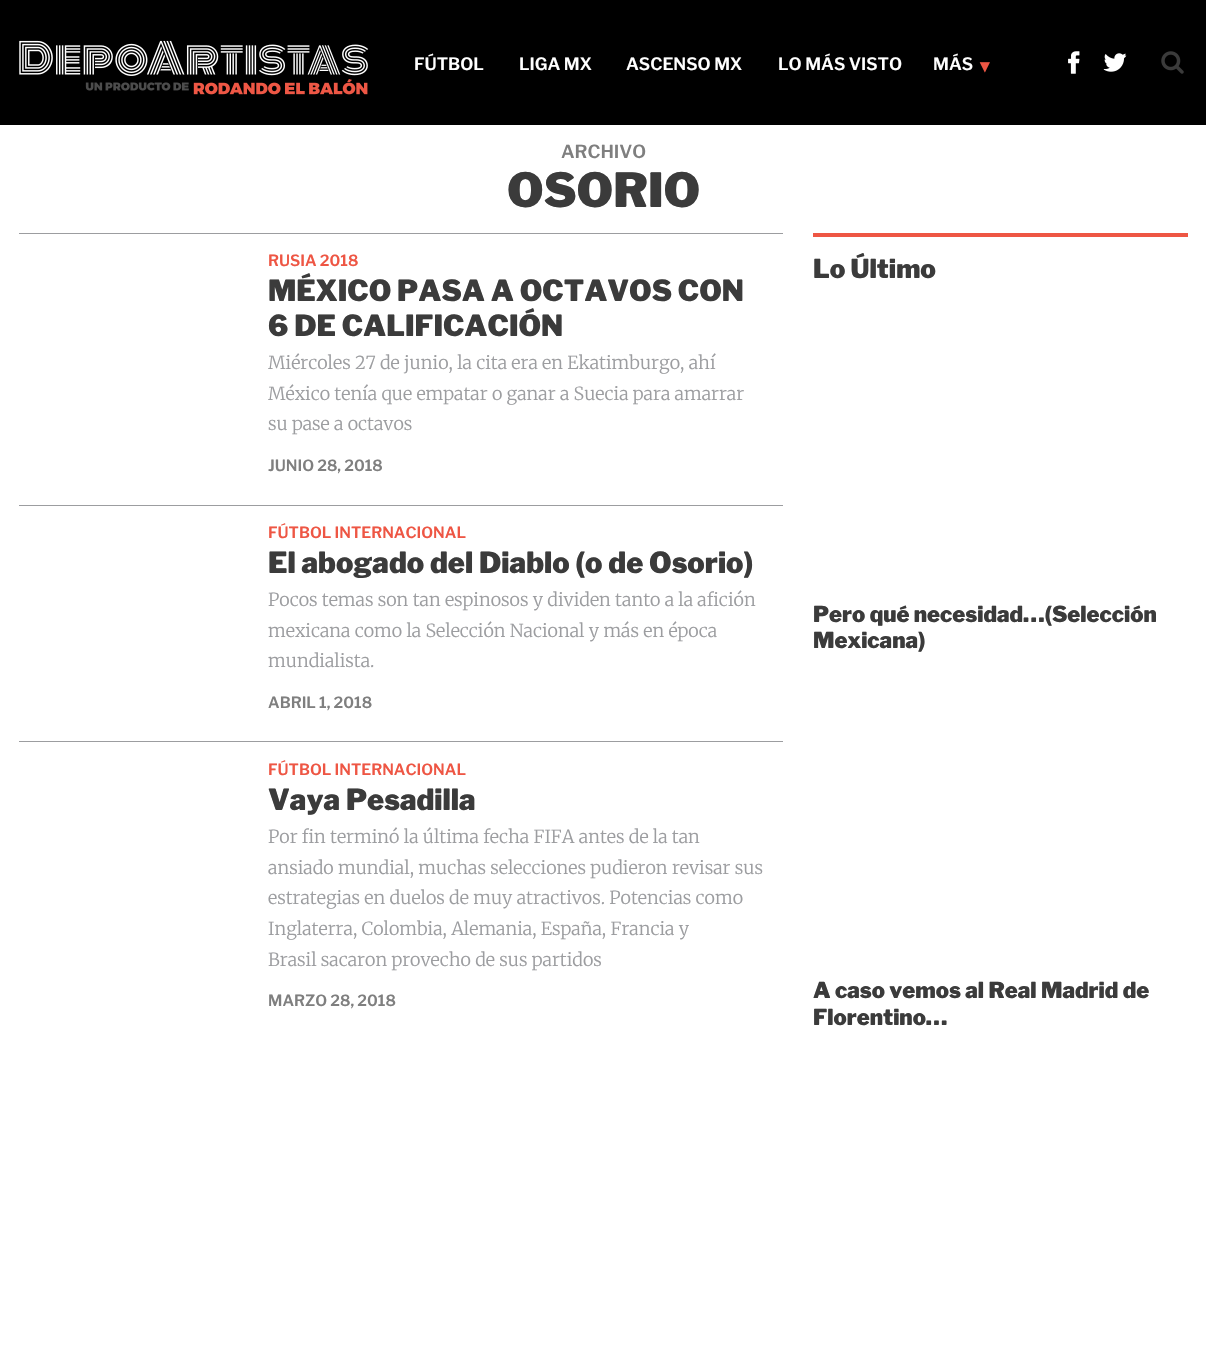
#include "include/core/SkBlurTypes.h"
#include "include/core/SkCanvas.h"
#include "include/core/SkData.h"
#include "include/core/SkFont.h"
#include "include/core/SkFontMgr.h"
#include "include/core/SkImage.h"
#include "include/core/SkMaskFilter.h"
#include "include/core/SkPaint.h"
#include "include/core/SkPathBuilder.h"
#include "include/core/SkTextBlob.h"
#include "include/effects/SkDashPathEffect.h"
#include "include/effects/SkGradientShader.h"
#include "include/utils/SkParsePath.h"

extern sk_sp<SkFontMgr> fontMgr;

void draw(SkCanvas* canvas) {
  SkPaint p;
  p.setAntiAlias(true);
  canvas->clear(SK_ColorWHITE);
  p.setColor(SK_ColorBLACK);
  canvas->drawRect(SkRect::MakeLTRB(0, 0, 1206, 125), p);
  canvas->drawImageRect(SkImages::DeferredFromEncodedData(SkData::MakeFromFileName("images/1.png")), SkRect::MakeLTRB(19, 40, 369, 95), SkSamplingOptions());
  canvas->drawImageRect(SkImages::DeferredFromEncodedData(SkData::MakeFromFileName("images/2.png")), SkRect::MakeLTRB(1068, 51, 1080, 74), SkSamplingOptions());
  canvas->drawImageRect(SkImages::DeferredFromEncodedData(SkData::MakeFromFileName("images/3.png")), SkRect::MakeLTRB(1103, 53, 1127, 72), SkSamplingOptions());
  canvas->drawImageRect(SkImages::DeferredFromEncodedData(SkData::MakeFromFileName("images/4.png")), SkRect::MakeLTRB(1161, 51, 1184, 74), SkSamplingOptions());
  p.setColor(SkColorSetRGB(156, 157, 160));
  canvas->drawRect(SkRect::MakeLTRB(19, 233, 783, 234), p);
  canvas->drawRect(SkRect::MakeLTRB(19, 505, 783, 506), p);
  canvas->drawRect(SkRect::MakeLTRB(19, 741, 783, 742), p);
  p.setColor(SkColorSetRGB(238, 86, 68));
  canvas->drawRect(SkRect::MakeLTRB(813, 233, 1188, 237), p);
  SkFont font1(fontMgr->matchFamilyStyle("Libre Franklin", SkFontStyle(600, SkFontStyle::kNormal_Width, SkFontStyle::kUpright_Slant)), 17);
  font1.setSubpixel(true);
  p.setColor(SK_ColorWHITE);
  canvas->drawString("FÚTBOL", 414, 70, font1, p);
  canvas->drawString("LIGA MX", 519, 70, font1, p);
  canvas->drawString("ASCENSO MX", 626, 70, font1, p);
  canvas->drawString("LO MÁS VISTO", 778, 70, font1, p);
  canvas->drawString("MÁS", 933, 70, font1, p);
  SkFont font2(fontMgr->matchFamilyStyle("Liberation Sans", SkFontStyle::Bold()), 17);
  font2.setSubpixel(true);
  p.setColor(SkColorSetRGB(238, 86, 68));
  canvas->save();
  canvas->rotate(90, 980, 59);
  canvas->drawString("►", 980, 59, font2, p);
  canvas->restore();
  SkFont font3(fontMgr->matchFamilyStyle("Libre Franklin", SkFontStyle(600, SkFontStyle::kNormal_Width, SkFontStyle::kUpright_Slant)), 18);
  font3.setSubpixel(true);
  p.setColor(SkColorSetRGB(127, 127, 127));
  canvas->drawString("ARCHIVO", 561, 158, font3, p);
  SkFont font4(fontMgr->matchFamilyStyle("Libre Franklin", SkFontStyle(900, SkFontStyle::kNormal_Width, SkFontStyle::kUpright_Slant)), 47);
  font4.setSubpixel(true);
  p.setColor(SkColorSetRGB(59, 59, 59));
  canvas->drawString("OSORIO", 507, 207, font4, p);
  SkFont font5(fontMgr->matchFamilyStyle("Libre Franklin", SkFontStyle(600, SkFontStyle::kNormal_Width, SkFontStyle::kUpright_Slant)), 15.4f);
  font5.setSubpixel(true);
  p.setColor(SkColorSetRGB(238, 86, 68));
  canvas->drawString("RUSIA 2018", 268, 266, font5, p);
  SkFont font6(fontMgr->matchFamilyStyle("Libre Franklin", SkFontStyle(900, SkFontStyle::kNormal_Width, SkFontStyle::kUpright_Slant)), 29);
  font6.setSubpixel(true);
  p.setColor(SkColorSetRGB(59, 59, 59));
  canvas->drawString("MÉXICO PASA A OCTAVOS CON", 268, 301, font6, p);
  canvas->drawString("6 DE CALIFICACIÓN", 268, 336, font6, p);
  SkFont font7(fontMgr->matchFamilyStyle("Merriweather", SkFontStyle(300, SkFontStyle::kNormal_Width, SkFontStyle::kUpright_Slant)), 18);
  font7.setSubpixel(true);
  p.setColor(SkColorSetRGB(156, 157, 160));
  canvas->drawString("Miércoles 27 de junio, la cita era en Ekatimburgo, ahí", 268, 369, font7, p);
  canvas->drawString("México tenía que empatar o ganar a Suecia para amarrar", 268, 400, font7, p);
  canvas->drawString("su pase a octavos", 268, 430, font7, p);
  p.setColor(SkColorSetRGB(127, 127, 127));
  canvas->drawString("JUNIO 28, 2018", 268, 471, font5, p);
  p.setColor(SkColorSetRGB(238, 86, 68));
  canvas->drawString("FÚTBOL INTERNACIONAL", 268, 538, font5, p);
  p.setColor(SkColorSetRGB(59, 59, 59));
  canvas->drawString("El abogado del Diablo (o de Osorio)", 268, 573, font6, p);
  p.setColor(SkColorSetRGB(156, 157, 160));
  canvas->drawString("Pocos temas son tan espinosos y dividen tanto a la afición", 268, 606, font7, p);
  canvas->drawString("mexicana como la Selección Nacional y más en época", 268, 637, font7, p);
  canvas->drawString("mundialista.", 268, 667, font7, p);
  p.setColor(SkColorSetRGB(127, 127, 127));
  canvas->drawString("ABRIL 1, 2018", 268, 708, font5, p);
  p.setColor(SkColorSetRGB(238, 86, 68));
  canvas->drawString("FÚTBOL INTERNACIONAL", 268, 775, font5, p);
  p.setColor(SkColorSetRGB(59, 59, 59));
  canvas->drawString("Vaya Pesadilla", 268, 810, font6, p);
  p.setColor(SkColorSetRGB(156, 157, 160));
  canvas->drawString("Por fin terminó la última fecha FIFA antes de la tan", 268, 843, font7, p);
  canvas->drawString("ansiado mundial, muchas selecciones pudieron revisar sus", 268, 874, font7, p);
  canvas->drawString("estrategias en duelos de muy atractivos. Potencias como", 268, 904, font7, p);
  canvas->drawString("Inglaterra, Colombia, Alemania, España, Francia y", 268, 935, font7, p);
  canvas->drawString("Brasil sacaron provecho de sus partidos", 268, 966, font7, p);
  p.setColor(SkColorSetRGB(127, 127, 127));
  canvas->drawString("MARZO 28, 2018", 268, 1006, font5, p);
  SkFont font8(fontMgr->matchFamilyStyle("Libre Franklin", SkFontStyle(900, SkFontStyle::kNormal_Width, SkFontStyle::kUpright_Slant)), 26);
  font8.setSubpixel(true);
  p.setColor(SkColorSetRGB(59, 59, 59));
  canvas->drawString("Lo Último", 813, 278, font8, p);
  SkFont font9(fontMgr->matchFamilyStyle("Libre Franklin", SkFontStyle(900, SkFontStyle::kNormal_Width, SkFontStyle::kUpright_Slant)), 22);
  font9.setSubpixel(true);
  canvas->drawString("Pero qué necesidad…(Selección", 813, 622, font9, p);
  canvas->drawString("Mexicana)", 813, 648, font9, p);
  canvas->drawString("A caso vemos al Real Madrid de", 813, 998, font9, p);
  canvas->drawString("Florentino…", 813, 1025, font9, p);
}
